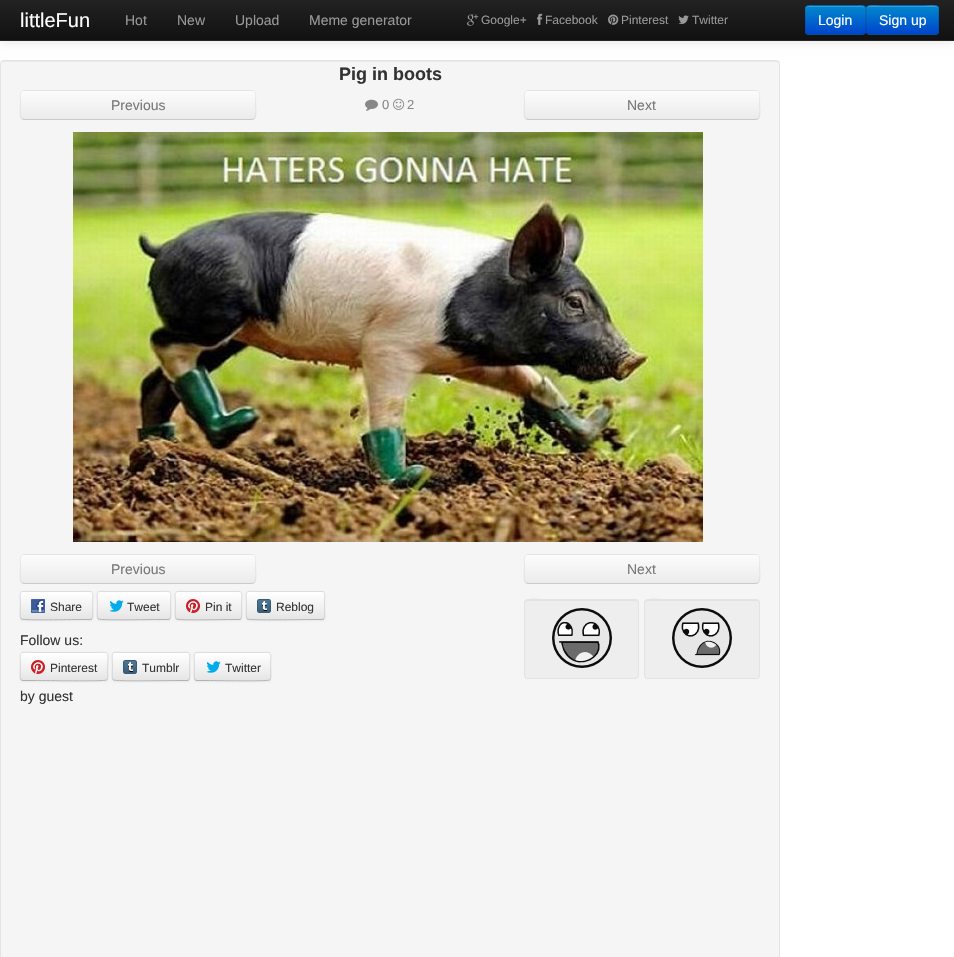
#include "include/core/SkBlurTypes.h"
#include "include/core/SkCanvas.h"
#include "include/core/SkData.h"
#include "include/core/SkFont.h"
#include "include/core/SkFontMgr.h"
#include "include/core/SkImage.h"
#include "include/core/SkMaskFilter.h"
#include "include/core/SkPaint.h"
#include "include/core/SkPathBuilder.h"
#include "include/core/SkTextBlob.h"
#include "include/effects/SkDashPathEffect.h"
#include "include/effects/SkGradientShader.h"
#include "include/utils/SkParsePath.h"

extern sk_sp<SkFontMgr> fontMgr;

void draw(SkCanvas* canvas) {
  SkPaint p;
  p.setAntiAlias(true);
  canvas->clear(SK_ColorWHITE);
  p.setColor(SkColorSetARGB(26, 0, 0, 0));
  p.setMaskFilter(SkMaskFilter::MakeBlur(kNormal_SkBlurStyle, 5));
  canvas->drawRect(SkRect::MakeLTRB(0, 1, 954, 42), p);
  p.setMaskFilter(nullptr);
  {
    const SkColor colors[] = {SkColorSetRGB(34, 34, 34), SkColorSetRGB(17, 17, 17)};
    const float stops[] = {0, 1};
    const SkPoint ends[] = {{477, 0}, {477, 40}};
    p.setShader(SkGradientShader::MakeLinear(ends, colors, stops, 2, SkTileMode::kClamp));
    p.setAlpha(255);
  }
  canvas->drawRect(SkRect::MakeLTRB(0, 0, 954, 40), p);
  p.setShader(nullptr);
  p.setColor(SkColorSetRGB(37, 37, 37));
  canvas->drawRect(SkRect::MakeLTRB(0, 40, 954, 41), p);
  canvas->drawImageRect(SkImages::DeferredFromEncodedData(SkData::MakeFromFileName("images/1.png")), SkRect::MakeLTRB(467, 14, 479, 26), SkSamplingOptions());
  canvas->drawImageRect(SkImages::DeferredFromEncodedData(SkData::MakeFromFileName("images/2.png")), SkRect::MakeLTRB(537, 13, 543, 25), SkSamplingOptions());
  canvas->drawImageRect(SkImages::DeferredFromEncodedData(SkData::MakeFromFileName("images/3.png")), SkRect::MakeLTRB(608, 14, 619, 25), SkSamplingOptions());
  canvas->drawImageRect(SkImages::DeferredFromEncodedData(SkData::MakeFromFileName("images/4.png")), SkRect::MakeLTRB(678, 15, 689, 24), SkSamplingOptions());
  p.setColor(SkColorSetRGB(0, 109, 204));
  canvas->drawRoundRect(SkRect::MakeLTRB(866, 5, 939, 35), 4, 4, p);
  canvas->save();
  canvas->clipPath(SkPathBuilder().moveTo(870, 5).lineTo(935, 5).cubicTo(937, 5, 939, 7, 939, 9).lineTo(939, 31).cubicTo(939, 33, 937, 35, 935, 35).lineTo(870, 35).cubicTo(868, 35, 866, 33, 866, 31).lineTo(866, 9).cubicTo(866, 7, 868, 5, 870, 5).close().detach(), true);
  {
    const SkColor colors[] = {SkColorSetRGB(0, 136, 204), SkColorSetRGB(0, 68, 204)};
    const float stops[] = {0, 1};
    const SkPoint ends[] = {{903, 6}, {903, 34}};
    p.setShader(SkGradientShader::MakeLinear(ends, colors, stops, 2, SkTileMode::kClamp));
    p.setAlpha(255);
  }
  canvas->drawRect(SkRect::MakeLTRB(866, 6, 939, 34), p);
  canvas->restore();
  p.setShader(nullptr);
  p.setColor(SkColorSetARGB(51, 255, 255, 255));
  canvas->drawPath(SkPathBuilder().moveTo(870, 7).lineTo(935, 7).cubicTo(937, 7, 938, 8, 938, 10).cubicTo(938, 3, 928, 6, 924, 6).lineTo(881, 6).cubicTo(877, 6, 867, 3, 867, 10).cubicTo(867, 8, 868, 7, 870, 7).close().detach(), p);
  p.setStyle(SkPaint::kStroke_Style);
  p.setStrokeWidth(1);
  p.setColor(SkColorSetARGB(64, 0, 0, 0));
  canvas->drawPath(SkPathBuilder().moveTo(937.5f, 33.5f).lineTo(935.5f, 34.5f).lineTo(869.5f, 34.5f).lineTo(867.5f, 33.5f).detach(), p);
  p.setColor(SkColorSetARGB(26, 0, 0, 0));
  canvas->drawPath(SkPathBuilder().moveTo(867.5f, 33.5f).cubicTo(865.5f, 31.5f, 866.5f, 23, 866.5f, 20).cubicTo(866.5f, 3.5f, 864, 5.5f, 881, 5.5f).lineTo(924, 5.5f).cubicTo(941, 5.5f, 938.5f, 3.5f, 938.5f, 20).cubicTo(938.5f, 23, 939.5f, 31.5f, 937.5f, 33.5f).detach(), p);
  p.setStyle(SkPaint::kFill_Style);
  p.setColor(SkColorSetRGB(0, 109, 204));
  canvas->drawRoundRect(SkRect::MakeLTRB(805, 5, 866, 35), 4, 4, p);
  canvas->save();
  canvas->clipPath(SkPathBuilder().moveTo(809, 5).lineTo(862, 5).cubicTo(864, 5, 866, 7, 866, 9).lineTo(866, 31).cubicTo(866, 33, 864, 35, 862, 35).lineTo(809, 35).cubicTo(807, 35, 805, 33, 805, 31).lineTo(805, 9).cubicTo(805, 7, 807, 5, 809, 5).close().detach(), true);
  {
    const SkColor colors[] = {SkColorSetRGB(0, 136, 204), SkColorSetRGB(0, 68, 204)};
    const float stops[] = {0, 1};
    const SkPoint ends[] = {{836, 6}, {836, 34}};
    p.setShader(SkGradientShader::MakeLinear(ends, colors, stops, 2, SkTileMode::kClamp));
    p.setAlpha(255);
  }
  canvas->drawRect(SkRect::MakeLTRB(805, 6, 866, 34), p);
  canvas->restore();
  p.setShader(nullptr);
  p.setColor(SkColorSetRGB(51, 159, 214));
  canvas->drawPath(SkPathBuilder().moveTo(809, 7).lineTo(862, 7).cubicTo(864, 7, 865, 8, 865, 10).cubicTo(865, 4, 858, 6, 853, 6).lineTo(818, 6).cubicTo(813, 6, 806, 4, 806, 10).cubicTo(806, 8, 807, 7, 809, 7).close().detach(), p);
  p.setStyle(SkPaint::kStroke_Style);
  p.setColor(SkColorSetARGB(64, 0, 0, 0));
  canvas->drawPath(SkPathBuilder().moveTo(864.5f, 33.5f).lineTo(862.5f, 34.5f).lineTo(808.5f, 34.5f).lineTo(806.5f, 33.5f).detach(), p);
  p.setColor(SkColorSetARGB(26, 0, 0, 0));
  canvas->drawPath(SkPathBuilder().moveTo(806.5f, 33.5f).cubicTo(804.5f, 31.5f, 805.5f, 23, 805.5f, 20).cubicTo(805.5f, 4.5f, 803, 5.5f, 818, 5.5f).lineTo(853, 5.5f).cubicTo(868, 5.5f, 865.5f, 4.5f, 865.5f, 20).cubicTo(865.5f, 23, 866.5f, 31.5f, 864.5f, 33.5f).detach(), p);
  p.setStyle(SkPaint::kFill_Style);
  p.setColor(SkColorSetRGB(245, 245, 245));
  canvas->drawRoundRect(SkRect::MakeLTRB(0, 60, 780, 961), 4, 4, p);
  p.setColor(SkColorSetRGB(233, 233, 233));
  canvas->drawPath(SkPathBuilder().moveTo(4, 62).lineTo(776, 62).cubicTo(778, 62, 779, 63, 779, 65).cubicTo(779, 63, 778, 61, 776, 61).lineTo(4, 61).cubicTo(2, 61, 1, 63, 1, 65).cubicTo(1, 63, 2, 62, 4, 62).close().detach(), p);
  p.setStyle(SkPaint::kStroke_Style);
  p.setColor(SkColorSetRGB(227, 227, 227));
  canvas->drawRoundRect(SkRect::MakeLTRB(0.5f, 60.5f, 779.5f, 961.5f), 3.5f, 3.5f, p);
  canvas->save();
  canvas->clipPath(SkPathBuilder().moveTo(24, 90).lineTo(252, 90).cubicTo(254, 90, 256, 92, 256, 94).lineTo(256, 116).cubicTo(256, 118, 254, 120, 252, 120).lineTo(24, 120).cubicTo(22, 120, 20, 118, 20, 116).lineTo(20, 94).cubicTo(20, 92, 22, 90, 24, 90).close().detach(), true);
  p.setStyle(SkPaint::kFill_Style);
  {
    const SkColor colors[] = {SkColorSetRGB(252, 252, 252), SkColorSetRGB(235, 235, 235)};
    const float stops[] = {0, 1};
    const SkPoint ends[] = {{138, 91}, {138, 119}};
    p.setShader(SkGradientShader::MakeLinear(ends, colors, stops, 2, SkTileMode::kClamp));
    p.setAlpha(255);
  }
  canvas->drawRect(SkRect::MakeLTRB(20, 91, 256, 119), p);
  canvas->restore();
  p.setStyle(SkPaint::kStroke_Style);
  p.setShader(nullptr);
  p.setColor(SkColorSetRGB(202, 202, 202));
  canvas->drawPath(SkPathBuilder().moveTo(254.5f, 118.5f).cubicTo(254, 119, 253, 119.5f, 252, 119.5f).lineTo(24, 119.5f).cubicTo(23, 119.5f, 22, 119, 21.5f, 118.5f).detach(), p);
  p.setColor(SkColorSetARGB(26, 86, 86, 86));
  canvas->drawPath(SkPathBuilder().moveTo(21.5f, 118.5f).cubicTo(19, 116, 20.5f, 104.5f, 20.5f, 101.5f).cubicTo(20.5f, 98.5f, 19, 90.5f, 24, 90.5f).lineTo(252, 90.5f).cubicTo(257, 90.5f, 255.5f, 98.5f, 255.5f, 101.5f).cubicTo(255.5f, 104.5f, 257, 116, 254.5f, 118.5f).detach(), p);
  canvas->drawImageRect(SkImages::DeferredFromEncodedData(SkData::MakeFromFileName("images/5.png")), SkRect::MakeLTRB(365, 99, 378, 111), SkSamplingOptions());
  canvas->drawImageRect(SkImages::DeferredFromEncodedData(SkData::MakeFromFileName("images/6.png")), SkRect::MakeLTRB(393, 98, 405, 110), SkSamplingOptions());
  canvas->save();
  canvas->clipPath(SkPathBuilder().moveTo(528, 90).lineTo(756, 90).cubicTo(758, 90, 760, 92, 760, 94).lineTo(760, 116).cubicTo(760, 118, 758, 120, 756, 120).lineTo(528, 120).cubicTo(526, 120, 524, 118, 524, 116).lineTo(524, 94).cubicTo(524, 92, 526, 90, 528, 90).close().detach(), true);
  p.setStyle(SkPaint::kFill_Style);
  {
    const SkColor colors[] = {SkColorSetRGB(252, 252, 252), SkColorSetRGB(235, 235, 235)};
    const float stops[] = {0, 1};
    const SkPoint ends[] = {{642, 91}, {642, 119}};
    p.setShader(SkGradientShader::MakeLinear(ends, colors, stops, 2, SkTileMode::kClamp));
    p.setAlpha(255);
  }
  canvas->drawRect(SkRect::MakeLTRB(524, 91, 760, 119), p);
  canvas->restore();
  p.setStyle(SkPaint::kStroke_Style);
  p.setShader(nullptr);
  p.setColor(SkColorSetRGB(202, 202, 202));
  canvas->drawPath(SkPathBuilder().moveTo(758.5f, 118.5f).cubicTo(758, 119, 757, 119.5f, 756, 119.5f).lineTo(528, 119.5f).cubicTo(527, 119.5f, 526, 119, 525.5f, 118.5f).detach(), p);
  p.setColor(SkColorSetARGB(26, 86, 86, 86));
  canvas->drawPath(SkPathBuilder().moveTo(525.5f, 118.5f).cubicTo(523, 116, 524.5f, 104.5f, 524.5f, 101.5f).cubicTo(524.5f, 98.5f, 523, 90.5f, 528, 90.5f).lineTo(756, 90.5f).cubicTo(761, 90.5f, 759.5f, 98.5f, 759.5f, 101.5f).cubicTo(759.5f, 104.5f, 761, 116, 758.5f, 118.5f).detach(), p);
  canvas->drawImageRect(SkImages::DeferredFromEncodedData(SkData::MakeFromFileName("images/7.png")), SkRect::MakeLTRB(73, 132, 703, 542), SkSamplingOptions());
  canvas->save();
  canvas->clipPath(SkPathBuilder().moveTo(24, 554).lineTo(252, 554).cubicTo(254, 554, 256, 556, 256, 558).lineTo(256, 580).cubicTo(256, 582, 254, 584, 252, 584).lineTo(24, 584).cubicTo(22, 584, 20, 582, 20, 580).lineTo(20, 558).cubicTo(20, 556, 22, 554, 24, 554).close().detach(), true);
  p.setStyle(SkPaint::kFill_Style);
  {
    const SkColor colors[] = {SkColorSetRGB(252, 252, 252), SkColorSetRGB(235, 235, 235)};
    const float stops[] = {0, 1};
    const SkPoint ends[] = {{138, 555}, {138, 583}};
    p.setShader(SkGradientShader::MakeLinear(ends, colors, stops, 2, SkTileMode::kClamp));
    p.setAlpha(255);
  }
  canvas->drawRect(SkRect::MakeLTRB(20, 555, 256, 583), p);
  canvas->restore();
  p.setStyle(SkPaint::kStroke_Style);
  p.setShader(nullptr);
  p.setColor(SkColorSetRGB(202, 202, 202));
  canvas->drawPath(SkPathBuilder().moveTo(254.5f, 582.5f).cubicTo(254, 583, 253, 583.5f, 252, 583.5f).lineTo(24, 583.5f).cubicTo(23, 583.5f, 22, 583, 21.5f, 582.5f).detach(), p);
  p.setColor(SkColorSetARGB(26, 86, 86, 86));
  canvas->drawPath(SkPathBuilder().moveTo(21.5f, 582.5f).cubicTo(19, 580, 20.5f, 568.5f, 20.5f, 565.5f).cubicTo(20.5f, 562.5f, 19, 554.5f, 24, 554.5f).lineTo(252, 554.5f).cubicTo(257, 554.5f, 255.5f, 562.5f, 255.5f, 565.5f).cubicTo(255.5f, 568.5f, 257, 580, 254.5f, 582.5f).detach(), p);
  canvas->save();
  canvas->clipPath(SkPathBuilder().moveTo(528, 554).lineTo(756, 554).cubicTo(758, 554, 760, 556, 760, 558).lineTo(760, 580).cubicTo(760, 582, 758, 584, 756, 584).lineTo(528, 584).cubicTo(526, 584, 524, 582, 524, 580).lineTo(524, 558).cubicTo(524, 556, 526, 554, 528, 554).close().detach(), true);
  p.setStyle(SkPaint::kFill_Style);
  {
    const SkColor colors[] = {SkColorSetRGB(252, 252, 252), SkColorSetRGB(235, 235, 235)};
    const float stops[] = {0, 1};
    const SkPoint ends[] = {{642, 555}, {642, 583}};
    p.setShader(SkGradientShader::MakeLinear(ends, colors, stops, 2, SkTileMode::kClamp));
    p.setAlpha(255);
  }
  canvas->drawRect(SkRect::MakeLTRB(524, 555, 760, 583), p);
  canvas->restore();
  p.setStyle(SkPaint::kStroke_Style);
  p.setShader(nullptr);
  p.setColor(SkColorSetRGB(202, 202, 202));
  canvas->drawPath(SkPathBuilder().moveTo(758.5f, 582.5f).cubicTo(758, 583, 757, 583.5f, 756, 583.5f).lineTo(528, 583.5f).cubicTo(527, 583.5f, 526, 583, 525.5f, 582.5f).detach(), p);
  p.setColor(SkColorSetARGB(26, 86, 86, 86));
  canvas->drawPath(SkPathBuilder().moveTo(525.5f, 582.5f).cubicTo(523, 580, 524.5f, 568.5f, 524.5f, 565.5f).cubicTo(524.5f, 562.5f, 523, 554.5f, 528, 554.5f).lineTo(756, 554.5f).cubicTo(761, 554.5f, 759.5f, 562.5f, 759.5f, 565.5f).cubicTo(759.5f, 568.5f, 761, 580, 758.5f, 582.5f).detach(), p);
  p.setStyle(SkPaint::kFill_Style);
  p.setColor(SkColorSetARGB(13, 0, 0, 0));
  p.setMaskFilter(SkMaskFilter::MakeBlur(kNormal_SkBlurStyle, 1));
  canvas->drawRoundRect(SkRect::MakeLTRB(20, 592, 93, 621), 3, 3, p);
  p.setMaskFilter(nullptr);
  p.setColor(SkColorSetRGB(245, 245, 245));
  canvas->drawRoundRect(SkRect::MakeLTRB(20, 591, 93, 620), 3, 3, p);
  canvas->save();
  canvas->clipPath(SkPathBuilder().moveTo(23, 591).lineTo(90, 591).cubicTo(91.5f, 591, 93, 592.5f, 93, 594).lineTo(93, 617).cubicTo(93, 618.5f, 91.5f, 620, 90, 620).lineTo(23, 620).cubicTo(21.5f, 620, 20, 618.5f, 20, 617).lineTo(20, 594).cubicTo(20, 592.5f, 21.5f, 591, 23, 591).close().detach(), true);
  {
    const SkColor colors[] = {SK_ColorWHITE, SkColorSetRGB(230, 230, 230)};
    const float stops[] = {0, 1};
    const SkPoint ends[] = {{57, 592}, {57, 619}};
    p.setShader(SkGradientShader::MakeLinear(ends, colors, stops, 2, SkTileMode::kClamp));
    p.setAlpha(255);
  }
  canvas->drawRect(SkRect::MakeLTRB(20, 592, 93, 619), p);
  canvas->restore();
  p.setStyle(SkPaint::kStroke_Style);
  p.setShader(nullptr);
  p.setColor(SkColorSetRGB(179, 179, 179));
  canvas->drawPath(SkPathBuilder().moveTo(92, 619).lineTo(90, 619.5f).lineTo(79, 619.5f).cubicTo(72.5f, 619.5f, 23.5f, 620.5f, 21.5f, 619).lineTo(21, 619).detach(), p);
  p.setColor(SkColorSetARGB(26, 0, 0, 0));
  canvas->drawPath(SkPathBuilder().moveTo(21, 619).cubicTo(19.5f, 617, 20.5f, 608, 20.5f, 605.5f).cubicTo(20.5f, 589, 17.5f, 591.5f, 34, 591.5f).lineTo(79, 591.5f).cubicTo(95.5f, 591.5f, 92.5f, 589, 92.5f, 605.5f).cubicTo(92.5f, 608, 93.5f, 617, 92, 619).detach(), p);
  canvas->drawImageRect(SkImages::DeferredFromEncodedData(SkData::MakeFromFileName("images/8.png")), SkRect::MakeLTRB(31, 599, 45, 613), SkSamplingOptions());
  p.setStyle(SkPaint::kFill_Style);
  p.setColor(SkColorSetARGB(13, 0, 0, 0));
  p.setMaskFilter(SkMaskFilter::MakeBlur(kNormal_SkBlurStyle, 1));
  canvas->drawRoundRect(SkRect::MakeLTRB(97, 592, 171, 621), 3, 3, p);
  p.setMaskFilter(nullptr);
  p.setColor(SkColorSetRGB(245, 245, 245));
  canvas->drawRoundRect(SkRect::MakeLTRB(97, 591, 171, 620), 3, 3, p);
  canvas->save();
  canvas->clipPath(SkPathBuilder().moveTo(100, 591).lineTo(168, 591).cubicTo(169.5f, 591, 171, 592.5f, 171, 594).lineTo(171, 617).cubicTo(171, 618.5f, 169.5f, 620, 168, 620).lineTo(100, 620).cubicTo(98.5f, 620, 97, 618.5f, 97, 617).lineTo(97, 594).cubicTo(97, 592.5f, 98.5f, 591, 100, 591).close().detach(), true);
  {
    const SkColor colors[] = {SK_ColorWHITE, SkColorSetRGB(230, 230, 230)};
    const float stops[] = {0, 1};
    const SkPoint ends[] = {{134, 592}, {134, 619}};
    p.setShader(SkGradientShader::MakeLinear(ends, colors, stops, 2, SkTileMode::kClamp));
    p.setAlpha(255);
  }
  canvas->drawRect(SkRect::MakeLTRB(97, 592, 171, 619), p);
  canvas->restore();
  p.setShader(nullptr);
  p.setColor(SK_ColorWHITE);
  canvas->drawPath(SkPathBuilder(SkPathFillType::kEvenOdd).moveTo(100, 593).lineTo(168, 593).lineTo(170, 594).cubicTo(170, 590, 161, 592, 157, 592).lineTo(100, 592).cubicTo(98, 592, 98, 593, 98, 594).cubicTo(98, 594, 99, 593, 100, 593).close().moveTo(98, 618).lineTo(98, 614).close().detach(), p);
  p.setStyle(SkPaint::kStroke_Style);
  p.setColor(SkColorSetRGB(179, 179, 179));
  canvas->drawPath(SkPathBuilder().moveTo(170, 619).lineTo(168, 619.5f).lineTo(156.5f, 619.5f).cubicTo(150, 619.5f, 100.5f, 620.5f, 98.5f, 619).lineTo(98, 619).detach(), p);
  p.setColor(SkColorSetARGB(26, 0, 0, 0));
  canvas->drawPath(SkPathBuilder().moveTo(98, 619).cubicTo(96.5f, 617, 97.5f, 608, 97.5f, 605.5f).cubicTo(97.5f, 589, 94.5f, 591.5f, 111.5f, 591.5f).lineTo(156.5f, 591.5f).cubicTo(173.5f, 591.5f, 170.5f, 589, 170.5f, 605.5f).cubicTo(170.5f, 608, 171.5f, 617, 170, 619).detach(), p);
  canvas->drawImageRect(SkImages::DeferredFromEncodedData(SkData::MakeFromFileName("images/9.png")), SkRect::MakeLTRB(109, 600, 124, 612), SkSamplingOptions());
  p.setStyle(SkPaint::kFill_Style);
  p.setColor(SkColorSetARGB(13, 0, 0, 0));
  p.setMaskFilter(SkMaskFilter::MakeBlur(kNormal_SkBlurStyle, 1));
  canvas->drawRoundRect(SkRect::MakeLTRB(175, 592, 242, 621), 3, 3, p);
  p.setMaskFilter(nullptr);
  p.setColor(SkColorSetRGB(245, 245, 245));
  canvas->drawRoundRect(SkRect::MakeLTRB(175, 591, 242, 620), 3, 3, p);
  canvas->save();
  canvas->clipPath(SkPathBuilder().moveTo(178, 591).lineTo(239, 591).cubicTo(240.5f, 591, 242, 592.5f, 242, 594).lineTo(242, 617).cubicTo(242, 618.5f, 240.5f, 620, 239, 620).lineTo(178, 620).cubicTo(176.5f, 620, 175, 618.5f, 175, 617).lineTo(175, 594).cubicTo(175, 592.5f, 176.5f, 591, 178, 591).close().detach(), true);
  {
    const SkColor colors[] = {SK_ColorWHITE, SkColorSetRGB(230, 230, 230)};
    const float stops[] = {0, 1};
    const SkPoint ends[] = {{209, 592}, {209, 619}};
    p.setShader(SkGradientShader::MakeLinear(ends, colors, stops, 2, SkTileMode::kClamp));
    p.setAlpha(255);
  }
  canvas->drawRect(SkRect::MakeLTRB(175, 592, 242, 619), p);
  canvas->restore();
  p.setStyle(SkPaint::kStroke_Style);
  p.setShader(nullptr);
  p.setColor(SkColorSetRGB(179, 179, 179));
  canvas->drawPath(SkPathBuilder().moveTo(241, 619).lineTo(239, 619.5f).lineTo(229, 619.5f).cubicTo(223, 619.5f, 178.5f, 620.5f, 176.5f, 619).lineTo(176, 619).detach(), p);
  p.setColor(SkColorSetARGB(26, 0, 0, 0));
  canvas->drawPath(SkPathBuilder().moveTo(176, 619).cubicTo(174.5f, 617, 175.5f, 608, 175.5f, 605.5f).cubicTo(175.5f, 589.5f, 172.5f, 591.5f, 188, 591.5f).lineTo(229, 591.5f).cubicTo(244.5f, 591.5f, 241.5f, 589.5f, 241.5f, 605.5f).cubicTo(241.5f, 608, 242.5f, 617, 241, 619).detach(), p);
  canvas->drawImageRect(SkImages::DeferredFromEncodedData(SkData::MakeFromFileName("images/10.png")), SkRect::MakeLTRB(186, 599, 200, 613), SkSamplingOptions());
  p.setStyle(SkPaint::kFill_Style);
  p.setColor(SkColorSetARGB(13, 0, 0, 0));
  p.setMaskFilter(SkMaskFilter::MakeBlur(kNormal_SkBlurStyle, 1));
  canvas->drawRoundRect(SkRect::MakeLTRB(246, 592, 325, 621), 3, 3, p);
  p.setMaskFilter(nullptr);
  p.setColor(SkColorSetRGB(245, 245, 245));
  canvas->drawRoundRect(SkRect::MakeLTRB(246, 591, 325, 620), 3, 3, p);
  canvas->save();
  canvas->clipPath(SkPathBuilder().moveTo(249, 591).lineTo(322, 591).cubicTo(323.5f, 591, 325, 592.5f, 325, 594).lineTo(325, 617).cubicTo(325, 618.5f, 323.5f, 620, 322, 620).lineTo(249, 620).cubicTo(247.5f, 620, 246, 618.5f, 246, 617).lineTo(246, 594).cubicTo(246, 592.5f, 247.5f, 591, 249, 591).close().detach(), true);
  {
    const SkColor colors[] = {SK_ColorWHITE, SkColorSetRGB(230, 230, 230)};
    const float stops[] = {0, 1};
    const SkPoint ends[] = {{286, 592}, {286, 619}};
    p.setShader(SkGradientShader::MakeLinear(ends, colors, stops, 2, SkTileMode::kClamp));
    p.setAlpha(255);
  }
  canvas->drawRect(SkRect::MakeLTRB(246, 592, 325, 619), p);
  canvas->restore();
  p.setStyle(SkPaint::kStroke_Style);
  p.setShader(nullptr);
  p.setColor(SkColorSetRGB(179, 179, 179));
  canvas->drawPath(SkPathBuilder().moveTo(324, 619).lineTo(322, 619.5f).lineTo(310, 619.5f).cubicTo(303, 619.5f, 249.5f, 620.5f, 247.5f, 619).lineTo(247, 619).detach(), p);
  p.setColor(SkColorSetARGB(26, 0, 0, 0));
  canvas->drawPath(SkPathBuilder().moveTo(247, 619).cubicTo(245.5f, 617, 246.5f, 608, 246.5f, 605.5f).cubicTo(246.5f, 588.5f, 243.5f, 591.5f, 261, 591.5f).lineTo(322, 591.5f).cubicTo(325.5f, 591.5f, 324.5f, 596, 324.5f, 598).lineTo(324.5f, 609.5f).cubicTo(324.5f, 611.5f, 325.5f, 617, 324, 619).detach(), p);
  canvas->drawImageRect(SkImages::DeferredFromEncodedData(SkData::MakeFromFileName("images/11.png")), SkRect::MakeLTRB(257, 599, 271, 613), SkSamplingOptions());
  p.setStyle(SkPaint::kFill_Style);
  p.setColor(SkColorSetARGB(13, 0, 0, 0));
  p.setMaskFilter(SkMaskFilter::MakeBlur(kNormal_SkBlurStyle, 1));
  canvas->drawRoundRect(SkRect::MakeLTRB(20, 653, 108, 682), 3, 3, p);
  p.setMaskFilter(nullptr);
  p.setColor(SkColorSetRGB(245, 245, 245));
  canvas->drawRoundRect(SkRect::MakeLTRB(20, 652, 108, 681), 3, 3, p);
  canvas->save();
  canvas->clipPath(SkPathBuilder().moveTo(23, 652).lineTo(105, 652).cubicTo(106.5f, 652, 108, 653.5f, 108, 655).lineTo(108, 678).cubicTo(108, 679.5f, 106.5f, 681, 105, 681).lineTo(23, 681).cubicTo(21.5f, 681, 20, 679.5f, 20, 678).lineTo(20, 655).cubicTo(20, 653.5f, 21.5f, 652, 23, 652).close().detach(), true);
  {
    const SkColor colors[] = {SK_ColorWHITE, SkColorSetRGB(230, 230, 230)};
    const float stops[] = {0, 1};
    const SkPoint ends[] = {{64, 653}, {64, 680}};
    p.setShader(SkGradientShader::MakeLinear(ends, colors, stops, 2, SkTileMode::kClamp));
    p.setAlpha(255);
  }
  canvas->drawRect(SkRect::MakeLTRB(20, 653, 108, 680), p);
  canvas->restore();
  p.setStyle(SkPaint::kStroke_Style);
  p.setShader(nullptr);
  p.setColor(SkColorSetRGB(179, 179, 179));
  canvas->drawPath(SkPathBuilder().moveTo(107, 680).lineTo(106.5f, 680).cubicTo(104.5f, 681.5f, 44, 680.5f, 36.5f, 680.5f).lineTo(23, 680.5f).lineTo(21, 680).detach(), p);
  p.setColor(SkColorSetARGB(26, 0, 0, 0));
  canvas->drawPath(SkPathBuilder().moveTo(21, 680).cubicTo(19.5f, 678, 20.5f, 669, 20.5f, 666.5f).cubicTo(20.5f, 649, 18, 652.5f, 36.5f, 652.5f).lineTo(91.5f, 652.5f).cubicTo(112, 652.5f, 107.5f, 649.5f, 107.5f, 670.5f).cubicTo(107.5f, 672.5f, 108.5f, 678, 107, 680).detach(), p);
  canvas->drawImageRect(SkImages::DeferredFromEncodedData(SkData::MakeFromFileName("images/10.png")), SkRect::MakeLTRB(31, 660, 45, 674), SkSamplingOptions());
  p.setStyle(SkPaint::kFill_Style);
  p.setColor(SkColorSetARGB(13, 0, 0, 0));
  p.setMaskFilter(SkMaskFilter::MakeBlur(kNormal_SkBlurStyle, 1));
  canvas->drawRoundRect(SkRect::MakeLTRB(112, 653, 190, 682), 3, 3, p);
  p.setMaskFilter(nullptr);
  p.setColor(SkColorSetRGB(245, 245, 245));
  canvas->drawRoundRect(SkRect::MakeLTRB(112, 652, 190, 681), 3, 3, p);
  canvas->save();
  canvas->clipPath(SkPathBuilder().moveTo(115, 652).lineTo(187, 652).cubicTo(188.5f, 652, 190, 653.5f, 190, 655).lineTo(190, 678).cubicTo(190, 679.5f, 188.5f, 681, 187, 681).lineTo(115, 681).cubicTo(113.5f, 681, 112, 679.5f, 112, 678).lineTo(112, 655).cubicTo(112, 653.5f, 113.5f, 652, 115, 652).close().detach(), true);
  {
    const SkColor colors[] = {SK_ColorWHITE, SkColorSetRGB(230, 230, 230)};
    const float stops[] = {0, 1};
    const SkPoint ends[] = {{151, 653}, {151, 680}};
    p.setShader(SkGradientShader::MakeLinear(ends, colors, stops, 2, SkTileMode::kClamp));
    p.setAlpha(255);
  }
  canvas->drawRect(SkRect::MakeLTRB(112, 653, 190, 680), p);
  canvas->restore();
  p.setStyle(SkPaint::kStroke_Style);
  p.setShader(nullptr);
  p.setColor(SkColorSetRGB(179, 179, 179));
  canvas->drawPath(SkPathBuilder().moveTo(189, 680).lineTo(187, 680.5f).lineTo(175, 680.5f).cubicTo(168, 680.5f, 115.5f, 681.5f, 113.5f, 680).lineTo(113, 680).detach(), p);
  p.setColor(SkColorSetARGB(26, 0, 0, 0));
  canvas->drawPath(SkPathBuilder().moveTo(113, 680).cubicTo(111.5f, 678, 112.5f, 669, 112.5f, 666.5f).cubicTo(112.5f, 649.5f, 109.5f, 652.5f, 127, 652.5f).lineTo(175, 652.5f).cubicTo(192.5f, 652.5f, 189.5f, 649.5f, 189.5f, 666.5f).cubicTo(189.5f, 669, 190.5f, 678, 189, 680).detach(), p);
  canvas->drawImageRect(SkImages::DeferredFromEncodedData(SkData::MakeFromFileName("images/11.png")), SkRect::MakeLTRB(123, 660, 137, 674), SkSamplingOptions());
  p.setStyle(SkPaint::kFill_Style);
  p.setColor(SkColorSetARGB(13, 0, 0, 0));
  p.setMaskFilter(SkMaskFilter::MakeBlur(kNormal_SkBlurStyle, 1));
  canvas->drawRoundRect(SkRect::MakeLTRB(194, 653, 271, 682), 3, 3, p);
  p.setMaskFilter(nullptr);
  p.setColor(SkColorSetRGB(245, 245, 245));
  canvas->drawRoundRect(SkRect::MakeLTRB(194, 652, 271, 681), 3, 3, p);
  canvas->save();
  canvas->clipPath(SkPathBuilder().moveTo(197, 652).lineTo(268, 652).cubicTo(269.5f, 652, 271, 653.5f, 271, 655).lineTo(271, 678).cubicTo(271, 679.5f, 269.5f, 681, 268, 681).lineTo(197, 681).cubicTo(195.5f, 681, 194, 679.5f, 194, 678).lineTo(194, 655).cubicTo(194, 653.5f, 195.5f, 652, 197, 652).close().detach(), true);
  {
    const SkColor colors[] = {SK_ColorWHITE, SkColorSetRGB(230, 230, 230)};
    const float stops[] = {0, 1};
    const SkPoint ends[] = {{233, 653}, {233, 680}};
    p.setShader(SkGradientShader::MakeLinear(ends, colors, stops, 2, SkTileMode::kClamp));
    p.setAlpha(255);
  }
  canvas->drawRect(SkRect::MakeLTRB(194, 653, 271, 680), p);
  canvas->restore();
  p.setStyle(SkPaint::kStroke_Style);
  p.setShader(nullptr);
  p.setColor(SkColorSetRGB(179, 179, 179));
  canvas->drawPath(SkPathBuilder().moveTo(270, 680).lineTo(269.5f, 680).cubicTo(267.5f, 681.5f, 215.5f, 680.5f, 209, 680.5f).lineTo(197, 680.5f).lineTo(195, 680).detach(), p);
  p.setColor(SkColorSetARGB(26, 0, 0, 0));
  canvas->drawPath(SkPathBuilder().moveTo(195, 680).cubicTo(193.5f, 678, 194.5f, 669, 194.5f, 666.5f).cubicTo(194.5f, 650, 191.5f, 652.5f, 209, 652.5f).lineTo(256, 652.5f).cubicTo(273.5f, 652.5f, 270.5f, 650, 270.5f, 666.5f).cubicTo(270.5f, 669, 271.5f, 678, 270, 680).detach(), p);
  canvas->drawImageRect(SkImages::DeferredFromEncodedData(SkData::MakeFromFileName("images/9.png")), SkRect::MakeLTRB(206, 661, 221, 673), SkSamplingOptions());
  p.setStyle(SkPaint::kFill_Style);
  p.setColor(SkColorSetRGB(238, 238, 238));
  canvas->drawRoundRect(SkRect::MakeLTRB(524, 599, 639, 679), 4, 4, p);
  p.setColor(SkColorSetRGB(226, 226, 226));
  canvas->drawPath(SkPathBuilder().moveTo(528, 601).lineTo(635, 601).cubicTo(637, 601, 638, 602, 638, 604).cubicTo(638, 602, 637, 600, 635, 600).lineTo(546, 600).cubicTo(544, 600, 525, 595, 525, 604).cubicTo(525, 602, 526, 601, 528, 601).close().detach(), p);
  p.setStyle(SkPaint::kStroke_Style);
  p.setColor(SkColorSetRGB(227, 227, 227));
  canvas->drawRoundRect(SkRect::MakeLTRB(524.5f, 599.5f, 638.5f, 678.5f), 3.5f, 3.5f, p);
  canvas->drawImageRect(SkImages::DeferredFromEncodedData(SkData::MakeFromFileName("images/12.png")), SkRect::MakeLTRB(552, 608, 612, 668), SkSamplingOptions());
  p.setStyle(SkPaint::kFill_Style);
  p.setColor(SkColorSetRGB(238, 238, 238));
  canvas->drawRoundRect(SkRect::MakeLTRB(644, 599, 760, 679), 4, 4, p);
  p.setColor(SkColorSetRGB(226, 226, 226));
  canvas->drawPath(SkPathBuilder().moveTo(648, 601).lineTo(756, 601).cubicTo(758, 601, 759, 602, 759, 604).cubicTo(759, 602, 758, 600, 756, 600).lineTo(666, 600).cubicTo(664, 600, 645, 595, 645, 604).cubicTo(645, 602, 646, 601, 648, 601).close().detach(), p);
  p.setStyle(SkPaint::kStroke_Style);
  p.setColor(SkColorSetRGB(227, 227, 227));
  canvas->drawRoundRect(SkRect::MakeLTRB(644.5f, 599.5f, 759.5f, 678.5f), 3.5f, 3.5f, p);
  canvas->drawImageRect(SkImages::DeferredFromEncodedData(SkData::MakeFromFileName("images/13.png")), SkRect::MakeLTRB(672, 608, 732, 668), SkSamplingOptions());
  SkFont font1(fontMgr->matchFamilyStyle("Liberation Sans", SkFontStyle::Normal()), 20);
  font1.setSubpixel(true);
  p.setStyle(SkPaint::kFill_Style);
  p.setColor(SK_ColorWHITE);
  canvas->drawString("littleFun", 20, 27, font1, p);
  SkFont font2(fontMgr->matchFamilyStyle("Liberation Sans", SkFontStyle::Normal()), 14);
  font2.setSubpixel(true);
  p.setColor(SkColorSetRGB(153, 153, 153));
  canvas->drawString("Hot", 125, 25, font2, p);
  canvas->drawString("New", 177, 25, font2, p);
  canvas->drawString("Upload", 235, 25, font2, p);
  canvas->drawString("Meme generator", 309, 25, font2, p);
  SkFont font3(fontMgr->matchFamilyStyle("Liberation Sans", SkFontStyle::Normal()), 12);
  font3.setSubpixel(true);
  canvas->drawString("Google+", 481, 24, font3, p);
  canvas->drawString("Facebook", 545, 24, font3, p);
  canvas->drawString("Pinterest", 621, 24, font3, p);
  canvas->drawString("Twitter", 692, 24, font3, p);
  p.setColor(SK_ColorWHITE);
  canvas->drawString("Login", 818, 25, font2, p);
  canvas->drawString("Sign up", 879, 25, font2, p);
  SkFont font4(fontMgr->matchFamilyStyle("Liberation Sans", SkFontStyle::Bold()), 18);
  font4.setSubpixel(true);
  p.setColor(SkColorSetRGB(51, 51, 51));
  canvas->drawString("Pig in boots", 339, 80, font4, p);
  p.setColor(SkColorSetRGB(119, 119, 119));
  canvas->drawString("Previous", 111, 110, font2, p);
  SkFont font5(fontMgr->matchFamilyStyle("Liberation Sans", SkFontStyle::Normal()), 13);
  font5.setSubpixel(true);
  p.setColor(SkColorSetRGB(136, 136, 136));
  canvas->drawString("0", 382, 109, font5, p);
  canvas->drawString("2", 407, 109, font5, p);
  p.setColor(SkColorSetRGB(119, 119, 119));
  canvas->drawString("Next", 627, 110, font2, p);
  canvas->drawString("Previous", 111, 574, font2, p);
  canvas->drawString("Next", 627, 574, font2, p);
  p.setColor(SkColorSetRGB(51, 51, 51));
  canvas->drawString("Share", 50, 611, font3, p);
  canvas->drawString("Tweet", 127, 611, font3, p);
  canvas->drawString("Pin it", 205, 611, font3, p);
  canvas->drawString("Reblog", 276, 611, font3, p);
  canvas->drawString("Follow us:", 20, 645, font2, p);
  canvas->drawString("Pinterest", 50, 672, font3, p);
  canvas->drawString("Tumblr", 142, 672, font3, p);
  canvas->drawString("Twitter", 225, 672, font3, p);
  canvas->drawString("by guest", 20, 701, font2, p);
}
